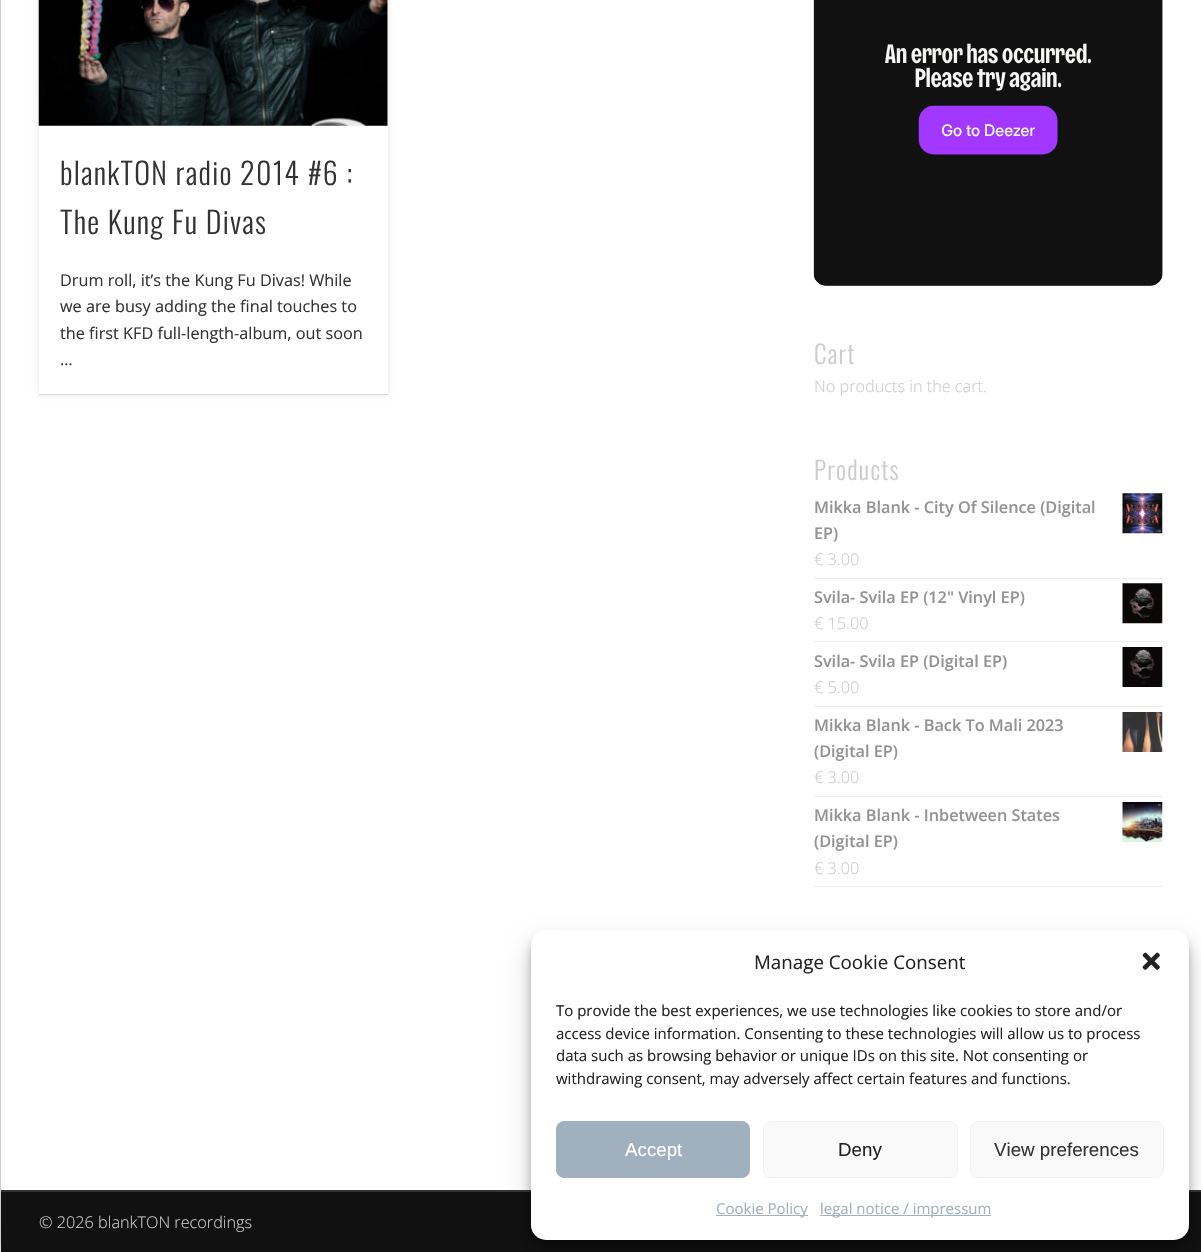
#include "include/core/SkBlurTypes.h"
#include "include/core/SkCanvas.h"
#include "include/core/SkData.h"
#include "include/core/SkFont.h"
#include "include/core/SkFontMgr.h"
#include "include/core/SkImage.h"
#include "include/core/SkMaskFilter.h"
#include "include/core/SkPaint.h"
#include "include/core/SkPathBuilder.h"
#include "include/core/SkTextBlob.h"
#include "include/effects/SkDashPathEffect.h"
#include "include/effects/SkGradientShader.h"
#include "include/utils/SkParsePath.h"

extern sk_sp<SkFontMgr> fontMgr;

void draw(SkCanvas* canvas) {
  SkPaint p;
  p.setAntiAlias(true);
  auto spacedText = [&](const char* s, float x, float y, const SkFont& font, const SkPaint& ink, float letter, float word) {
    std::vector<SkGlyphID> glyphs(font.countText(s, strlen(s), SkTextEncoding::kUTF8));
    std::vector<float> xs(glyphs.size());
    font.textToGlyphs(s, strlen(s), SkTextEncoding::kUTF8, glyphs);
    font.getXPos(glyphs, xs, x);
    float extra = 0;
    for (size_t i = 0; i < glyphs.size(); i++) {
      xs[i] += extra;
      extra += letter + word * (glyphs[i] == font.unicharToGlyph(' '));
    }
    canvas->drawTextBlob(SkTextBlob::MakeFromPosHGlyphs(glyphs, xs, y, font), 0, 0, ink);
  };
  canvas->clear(SK_ColorWHITE);
  p.setColor(SkColorSetARGB(102, 0, 0, 0));
  p.setMaskFilter(SkMaskFilter::MakeBlur(kNormal_SkBlurStyle, 11));
  canvas->drawRect(SkRect::MakeLTRB(1, -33, 1201, 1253), p);
  p.setMaskFilter(nullptr);
  p.setColor(SK_ColorWHITE);
  canvas->drawRect(SkRect::MakeLTRB(1, 0, 1201, 1190), p);
  p.setColor(SkColorSetARGB(26, 0, 0, 0));
  p.setMaskFilter(SkMaskFilter::MakeBlur(kNormal_SkBlurStyle, 3));
  canvas->drawRect(SkRect::MakeLTRB(39, -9, 388, 395), p);
  p.setMaskFilter(nullptr);
  p.setColor(SK_ColorWHITE);
  canvas->drawRect(SkRect::MakeLTRB(39, 0, 388, 394), p);
  p.setColor(SkColorSetRGB(222, 222, 222));
  canvas->drawRect(SkRect::MakeLTRB(39, 394, 388, 395), p);
  canvas->drawImageRect(SkImages::DeferredFromEncodedData(SkData::MakeFromFileName("images/1.png")), SkRect::MakeLTRB(38, 0, 388, 126), SkSamplingOptions());
  canvas->drawImageRect(SkImages::DeferredFromEncodedData(SkData::MakeFromFileName("images/2.png")), SkRect::MakeLTRB(813, 0, 1163, 286), SkSamplingOptions());
  p.setColor(SkColorSetRGB(238, 238, 238));
  canvas->drawRect(SkRect::MakeLTRB(814, 578, 1163, 579), p);
  canvas->drawImageRect(SkImages::DeferredFromEncodedData(SkData::MakeFromFileName("images/3.png")), SkRect::MakeLTRB(1122, 493, 1163, 534), SkSamplingOptions());
  canvas->drawRect(SkRect::MakeLTRB(814, 641, 1163, 642), p);
  canvas->drawImageRect(SkImages::DeferredFromEncodedData(SkData::MakeFromFileName("images/4.png")), SkRect::MakeLTRB(1122, 583, 1163, 624), SkSamplingOptions());
  canvas->drawRect(SkRect::MakeLTRB(814, 706, 1163, 707), p);
  canvas->drawImageRect(SkImages::DeferredFromEncodedData(SkData::MakeFromFileName("images/5.png")), SkRect::MakeLTRB(1122, 647, 1163, 687), SkSamplingOptions());
  canvas->drawRect(SkRect::MakeLTRB(814, 796, 1163, 797), p);
  canvas->drawImageRect(SkImages::DeferredFromEncodedData(SkData::MakeFromFileName("images/6.png")), SkRect::MakeLTRB(1122, 712, 1163, 752), SkSamplingOptions());
  canvas->drawRect(SkRect::MakeLTRB(814, 886, 1163, 887), p);
  canvas->drawImageRect(SkImages::DeferredFromEncodedData(SkData::MakeFromFileName("images/7.png")), SkRect::MakeLTRB(1122, 802, 1163, 842), SkSamplingOptions());
  p.setColor(SkColorSetRGB(54, 54, 54));
  canvas->drawRect(SkRect::MakeLTRB(1, 1190, 1201, 1191), p);
  p.setColor(SkColorSetRGB(17, 17, 17));
  canvas->drawRect(SkRect::MakeLTRB(1, 1192, 1201, 1252), p);
  p.setColor(SkColorSetRGB(52, 52, 52));
  canvas->drawRect(SkRect::MakeLTRB(1, 1191, 1201, 1192), p);
  p.setColor(SkColorSetARGB(59, 0, 0, 0));
  p.setMaskFilter(SkMaskFilter::MakeBlur(kNormal_SkBlurStyle, 4));
  canvas->drawRoundRect(SkRect::MakeLTRB(531, 938, 1189, 1248), 15, 15, p);
  p.setMaskFilter(nullptr);
  p.setColor(SkColorSetARGB(48, 0, 0, 0));
  p.setMaskFilter(SkMaskFilter::MakeBlur(kNormal_SkBlurStyle, 12.5f));
  canvas->drawRoundRect(SkRect::MakeLTRB(531, 943, 1189, 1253), 15, 15, p);
  p.setMaskFilter(nullptr);
  p.setColor(SK_ColorWHITE);
  canvas->drawRoundRect(SkRect::MakeLTRB(531, 930, 1189, 1240), 15, 15, p);
  canvas->drawImageRect(SkImages::DeferredFromEncodedData(SkData::MakeFromFileName("images/8.png")), SkRect::MakeLTRB(1142, 952, 1160, 970), SkSamplingOptions());
  p.setColor(SkColorSetRGB(160, 176, 191));
  canvas->drawRoundRect(SkRect::MakeLTRB(556.5f, 1121.5f, 749.5f, 1177.5f), 7.5f, 7.5f, p);
  p.setStyle(SkPaint::kStroke_Style);
  p.setStrokeWidth(1);
  p.setColor(SkColorSetRGB(162, 177, 191));
  canvas->drawRoundRect(SkRect::MakeLTRB(556.5f, 1121.5f, 749.5f, 1177.5f), 7.5f, 7.5f, p);
  p.setStyle(SkPaint::kFill_Style);
  p.setColor(SkColorSetRGB(249, 249, 249));
  canvas->drawRoundRect(SkRect::MakeLTRB(763.5f, 1121.5f, 957.5f, 1177.5f), 7.5f, 7.5f, p);
  p.setStyle(SkPaint::kStroke_Style);
  p.setColor(SkColorSetRGB(242, 242, 242));
  canvas->drawRoundRect(SkRect::MakeLTRB(763.5f, 1121.5f, 957.5f, 1177.5f), 7.5f, 7.5f, p);
  p.setStyle(SkPaint::kFill_Style);
  p.setColor(SkColorSetRGB(249, 249, 249));
  canvas->drawRoundRect(SkRect::MakeLTRB(970.5f, 1121.5f, 1163.5f, 1177.5f), 7.5f, 7.5f, p);
  p.setStyle(SkPaint::kStroke_Style);
  p.setColor(SkColorSetRGB(242, 242, 242));
  canvas->drawRoundRect(SkRect::MakeLTRB(970.5f, 1121.5f, 1163.5f, 1177.5f), 7.5f, 7.5f, p);
  p.setStyle(SkPaint::kFill_Style);
  p.setColor(SkColorSetRGB(162, 177, 191));
  canvas->drawRect(SkRect::MakeLTRB(716, 1215, 808, 1216), p);
  canvas->drawRect(SkRect::MakeLTRB(820, 1215, 991, 1216), p);
  SkFont font1(fontMgr->matchFamilyStyle("Oswald", SkFontStyle(300, SkFontStyle::kNormal_Width, SkFontStyle::kUpright_Slant)), 30);
  font1.setSubpixel(true);
  p.setColor(SkColorSetRGB(51, 51, 51));
  spacedText("blankTON radio 2014 #6 :", 60, 185, font1, p, 1.25f, 0);
  spacedText("The Kung Fu Divas", 60, 234, font1, p, 1.25f, 0);
  SkFont font2(fontMgr->matchFamilyStyle("Open Sans", SkFontStyle::Normal()), 16.25f);
  font2.setSubpixel(true);
  canvas->drawString("Drum roll, it’s the Kung Fu Divas! While", 60, 286, font2, p);
  canvas->drawString("we are busy adding the final touches to", 60, 312, font2, p);
  canvas->drawString("the first KFD full-length-album, out soon", 60, 339, font2, p);
  canvas->drawString("…", 60, 365, font2, p);
  SkFont font3(fontMgr->matchFamilyStyle("Oswald", SkFontStyle(300, SkFontStyle::kNormal_Width, SkFontStyle::kUpright_Slant)), 25);
  font3.setSubpixel(true);
  p.setColor(SkColorSetRGB(204, 204, 204));
  spacedText("Cart", 814, 364, font3, p, 1.25f, 0);
  SkFont font4(fontMgr->matchFamilyStyle("Open Sans", SkFontStyle(300, SkFontStyle::kNormal_Width, SkFontStyle::kUpright_Slant)), 16.25f);
  font4.setSubpixel(true);
  canvas->drawString("No products in the cart.", 814, 392, font4, p);
  spacedText("Products", 814, 480, font3, p, 1.25f, 0);
  SkFont font5(fontMgr->matchFamilyStyle("Open Sans", SkFontStyle(600, SkFontStyle::kNormal_Width, SkFontStyle::kUpright_Slant)), 16.25f);
  font5.setSubpixel(true);
  p.setColor(SkColorSetRGB(147, 147, 147));
  canvas->drawString("Mikka Blank - City Of Silence (Digital", 814, 513, font5, p);
  canvas->drawString("EP)", 814, 539, font5, p);
  p.setColor(SkColorSetRGB(204, 204, 204));
  canvas->drawString("€ 3.00", 814, 565, font4, p);
  p.setColor(SkColorSetRGB(147, 147, 147));
  canvas->drawString("Svila- Svila EP (12\" Vinyl EP)", 814, 603, font5, p);
  p.setColor(SkColorSetRGB(204, 204, 204));
  canvas->drawString("€ 15.00", 814, 629, font4, p);
  p.setColor(SkColorSetRGB(147, 147, 147));
  canvas->drawString("Svila- Svila EP (Digital EP)", 814, 667, font5, p);
  p.setColor(SkColorSetRGB(204, 204, 204));
  canvas->drawString("€ 5.00", 814, 693, font4, p);
  p.setColor(SkColorSetRGB(147, 147, 147));
  canvas->drawString("Mikka Blank - Back To Mali 2023", 814, 731, font5, p);
  canvas->drawString("(Digital EP)", 814, 757, font5, p);
  p.setColor(SkColorSetRGB(204, 204, 204));
  canvas->drawString("€ 3.00", 814, 783, font4, p);
  p.setColor(SkColorSetRGB(147, 147, 147));
  canvas->drawString("Mikka Blank - Inbetween States", 814, 821, font5, p);
  canvas->drawString("(Digital EP)", 814, 847, font5, p);
  p.setColor(SkColorSetRGB(204, 204, 204));
  canvas->drawString("€ 3.00", 814, 874, font4, p);
  canvas->drawString("© 2026 blankTON recordings", 39, 1228, font4, p);
  SkFont font6(fontMgr->matchFamilyStyle("Open Sans", SkFontStyle::Normal()), 18.75f);
  font6.setSubpixel(true);
  p.setColor(SkColorSetRGB(34, 34, 34));
  canvas->drawString("Manage Cookie Consent", 754, 969, font6, p);
  SkFont font7(fontMgr->matchFamilyStyle("Open Sans", SkFontStyle::Normal()), 15);
  font7.setSubpixel(true);
  canvas->drawString("To provide the best experiences, we use technologies like cookies to store and/or", 556, 1016, font7, p);
  canvas->drawString("access device information. Consenting to these technologies will allow us to process", 556, 1039, font7, p);
  canvas->drawString("data such as browsing behavior or unique IDs on this site. Not consenting or", 556, 1061, font7, p);
  canvas->drawString("withdrawing consent, may adversely affect certain features and functions.", 556, 1084, font7, p);
  SkFont font8(fontMgr->matchFamilyStyle("Liberation Sans", SkFontStyle::Normal()), 18.75f);
  font8.setSubpixel(true);
  p.setColor(SK_ColorWHITE);
  canvas->drawString("Accept", 625, 1156, font8, p);
  p.setColor(SkColorSetRGB(34, 34, 34));
  canvas->drawString("Deny", 838, 1156, font8, p);
  p.setColor(SkColorSetRGB(51, 51, 51));
  canvas->drawString("View preferences", 994, 1156, font8, p);
  p.setColor(SkColorSetRGB(162, 177, 191));
  canvas->drawString("Cookie Policy", 716, 1214, font7, p);
  canvas->drawString("legal notice / impressum", 820, 1214, font7, p);
}
